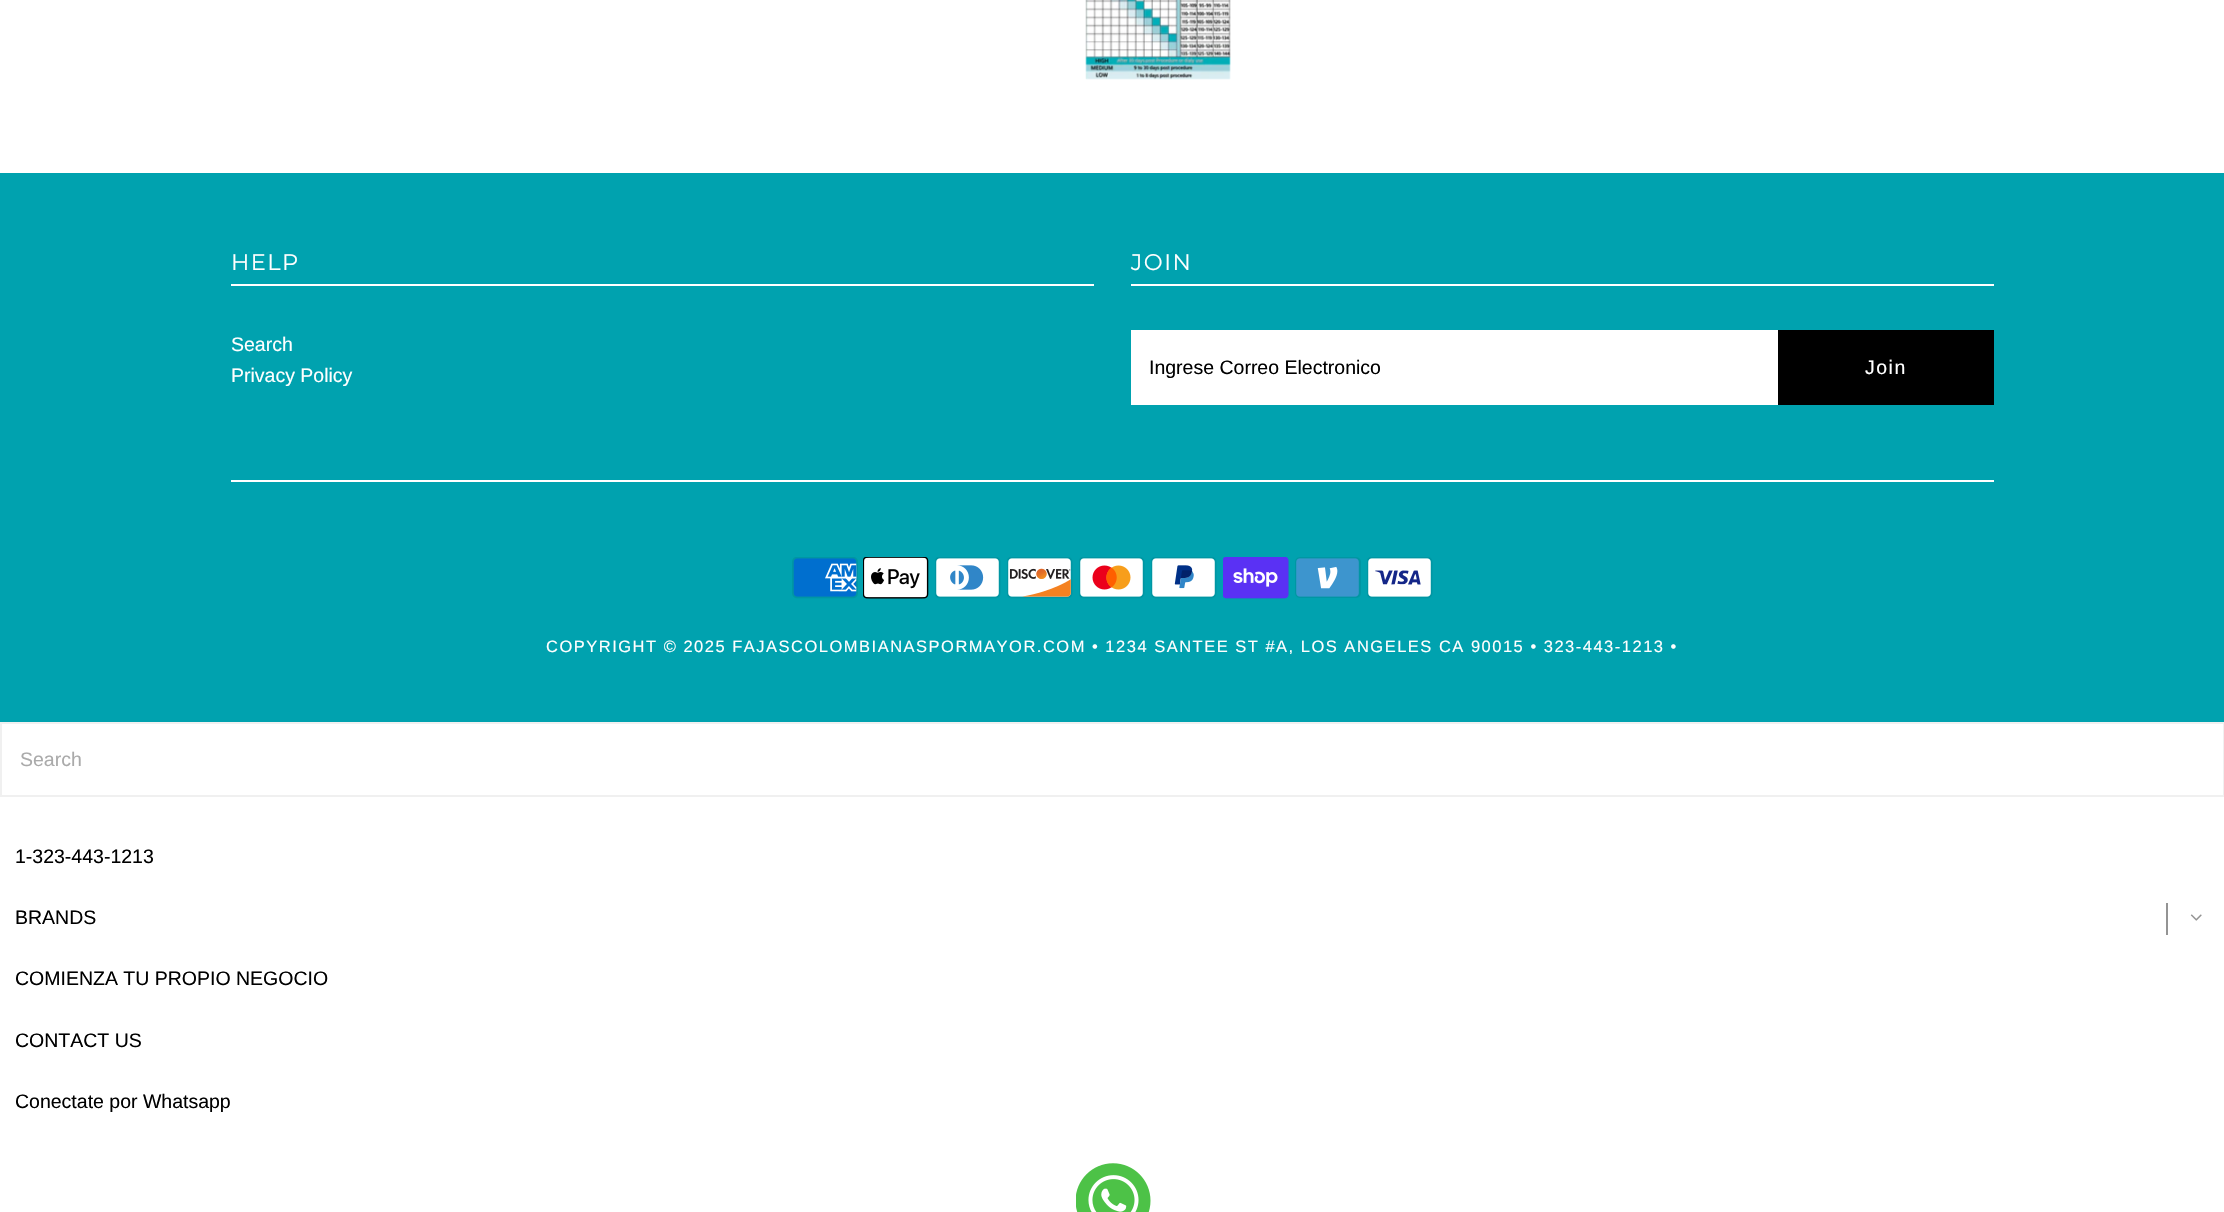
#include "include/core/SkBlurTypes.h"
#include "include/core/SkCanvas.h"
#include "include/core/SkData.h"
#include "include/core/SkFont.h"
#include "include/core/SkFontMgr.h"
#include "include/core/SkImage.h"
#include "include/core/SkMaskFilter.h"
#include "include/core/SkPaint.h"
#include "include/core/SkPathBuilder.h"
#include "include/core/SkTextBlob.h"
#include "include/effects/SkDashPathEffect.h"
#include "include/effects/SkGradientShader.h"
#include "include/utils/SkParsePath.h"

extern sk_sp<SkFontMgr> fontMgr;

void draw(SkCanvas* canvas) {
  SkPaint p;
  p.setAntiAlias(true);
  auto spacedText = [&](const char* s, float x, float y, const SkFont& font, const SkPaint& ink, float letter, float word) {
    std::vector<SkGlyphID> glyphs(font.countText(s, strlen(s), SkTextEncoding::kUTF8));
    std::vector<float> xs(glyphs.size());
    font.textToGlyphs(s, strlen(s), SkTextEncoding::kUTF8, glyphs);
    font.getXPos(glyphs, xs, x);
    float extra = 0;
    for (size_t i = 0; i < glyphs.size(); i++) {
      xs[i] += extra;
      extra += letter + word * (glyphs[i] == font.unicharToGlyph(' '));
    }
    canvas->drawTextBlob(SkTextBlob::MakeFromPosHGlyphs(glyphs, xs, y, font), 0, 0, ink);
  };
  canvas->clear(SK_ColorWHITE);
  canvas->drawImageRect(SkImages::DeferredFromEncodedData(SkData::MakeFromFileName("images/1.png")), SkRect::MakeLTRB(1085, 0, 1231, 80), SkSamplingOptions());
  p.setColor(SkColorSetRGB(0, 162, 175));
  canvas->drawRect(SkRect::MakeLTRB(0, 173, 2224, 722), p);
  p.setColor(SK_ColorWHITE);
  canvas->drawRect(SkRect::MakeLTRB(231, 284, 1094, 286), p);
  canvas->drawRect(SkRect::MakeLTRB(1131, 284, 1994, 286), p);
  canvas->drawRect(SkRect::MakeLTRB(1131, 330, 1778, 405), p);
  p.setColor(SK_ColorBLACK);
  canvas->drawRect(SkRect::MakeLTRB(1778, 330, 1994, 405), p);
  p.setColor(SK_ColorWHITE);
  canvas->drawRect(SkRect::MakeLTRB(231, 480, 1994, 482), p);
  canvas->drawImageRect(SkImages::DeferredFromEncodedData(SkData::MakeFromFileName("images/2.png")), SkRect::MakeLTRB(792, 557, 858, 599), SkSamplingOptions());
  canvas->drawImageRect(SkImages::DeferredFromEncodedData(SkData::MakeFromFileName("images/3.png")), SkRect::MakeLTRB(863, 557, 929, 599), SkSamplingOptions());
  canvas->drawImageRect(SkImages::DeferredFromEncodedData(SkData::MakeFromFileName("images/4.png")), SkRect::MakeLTRB(935, 557, 1001, 599), SkSamplingOptions());
  canvas->drawImageRect(SkImages::DeferredFromEncodedData(SkData::MakeFromFileName("images/5.png")), SkRect::MakeLTRB(1007, 557, 1073, 599), SkSamplingOptions());
  canvas->drawImageRect(SkImages::DeferredFromEncodedData(SkData::MakeFromFileName("images/6.png")), SkRect::MakeLTRB(1079, 557, 1145, 599), SkSamplingOptions());
  canvas->drawImageRect(SkImages::DeferredFromEncodedData(SkData::MakeFromFileName("images/7.png")), SkRect::MakeLTRB(1151, 557, 1217, 599), SkSamplingOptions());
  canvas->drawImageRect(SkImages::DeferredFromEncodedData(SkData::MakeFromFileName("images/8.png")), SkRect::MakeLTRB(1223, 557, 1289, 599), SkSamplingOptions());
  canvas->drawImageRect(SkImages::DeferredFromEncodedData(SkData::MakeFromFileName("images/9.png")), SkRect::MakeLTRB(1295, 557, 1361, 598), SkSamplingOptions());
  canvas->drawImageRect(SkImages::DeferredFromEncodedData(SkData::MakeFromFileName("images/10.png")), SkRect::MakeLTRB(1367, 557, 1433, 599), SkSamplingOptions());
  p.setStyle(SkPaint::kStroke_Style);
  p.setStrokeWidth(2);
  p.setColor(SkColorSetRGB(240, 240, 240));
  canvas->drawRect(SkRect::MakeLTRB(1, 723, 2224, 796), p);
  p.setStyle(SkPaint::kFill_Style);
  p.setColor(SkColorSetRGB(148, 148, 148));
  canvas->drawRect(SkRect::MakeLTRB(2166, 903, 2168, 935), p);
  canvas->drawImageRect(SkImages::DeferredFromEncodedData(SkData::MakeFromFileName("images/11.png")), SkRect::MakeLTRB(2190, 914, 2202, 921), SkSamplingOptions());
  canvas->drawImageRect(SkImages::DeferredFromEncodedData(SkData::MakeFromFileName("images/12.png")), SkRect::MakeLTRB(1076, 1163, 1151, 1212), SkSamplingOptions());
  SkFont font1(fontMgr->matchFamilyStyle("Montserrat", SkFontStyle::Normal()), 22.5f);
  font1.setSubpixel(true);
  p.setColor(SK_ColorWHITE);
  spacedText("HELP", 231, 270, font1, p, 1.5f, 0);
  SkFont font2(fontMgr->matchFamilyStyle("Liberation Sans", SkFontStyle::Normal()), 19.5f);
  font2.setSubpixel(true);
  canvas->drawString("Search", 231, 351, font2, p);
  canvas->drawString("Privacy Policy", 231, 382, font2, p);
  spacedText("JOIN", 1131, 270, font1, p, 1.5f, 0);
  p.setColor(SK_ColorBLACK);
  canvas->drawString("Ingrese Correo Electronico", 1149, 374, font2, p);
  p.setColor(SK_ColorWHITE);
  spacedText("Join", 1865, 374, font2, p, 1.5f, 0);
  SkFont font3(fontMgr->matchFamilyStyle("Liberation Sans", SkFontStyle::Normal()), 16.5f);
  font3.setSubpixel(true);
  spacedText("COPYRIGHT © 2025 FAJASCOLOMBIANASPORMAYOR.COM • 1234 SANTEE ST #A, LOS ANGELES CA 90015 • 323-443-1213 •", 546, 652, font3, p, 1.5f, 0);
  p.setColor(SkColorSetRGB(170, 170, 170));
  canvas->drawString("Search", 20, 766, font2, p);
  p.setColor(SK_ColorBLACK);
  canvas->drawString("1-323-443-1213", 15, 863, font2, p);
  canvas->drawString("BRANDS", 15, 924, font2, p);
  canvas->drawString("COMIENZA TU PROPIO NEGOCIO", 15, 985, font2, p);
  canvas->drawString("CONTACT US", 15, 1047, font2, p);
  canvas->drawString("Conectate por Whatsapp", 15, 1108, font2, p);
}
